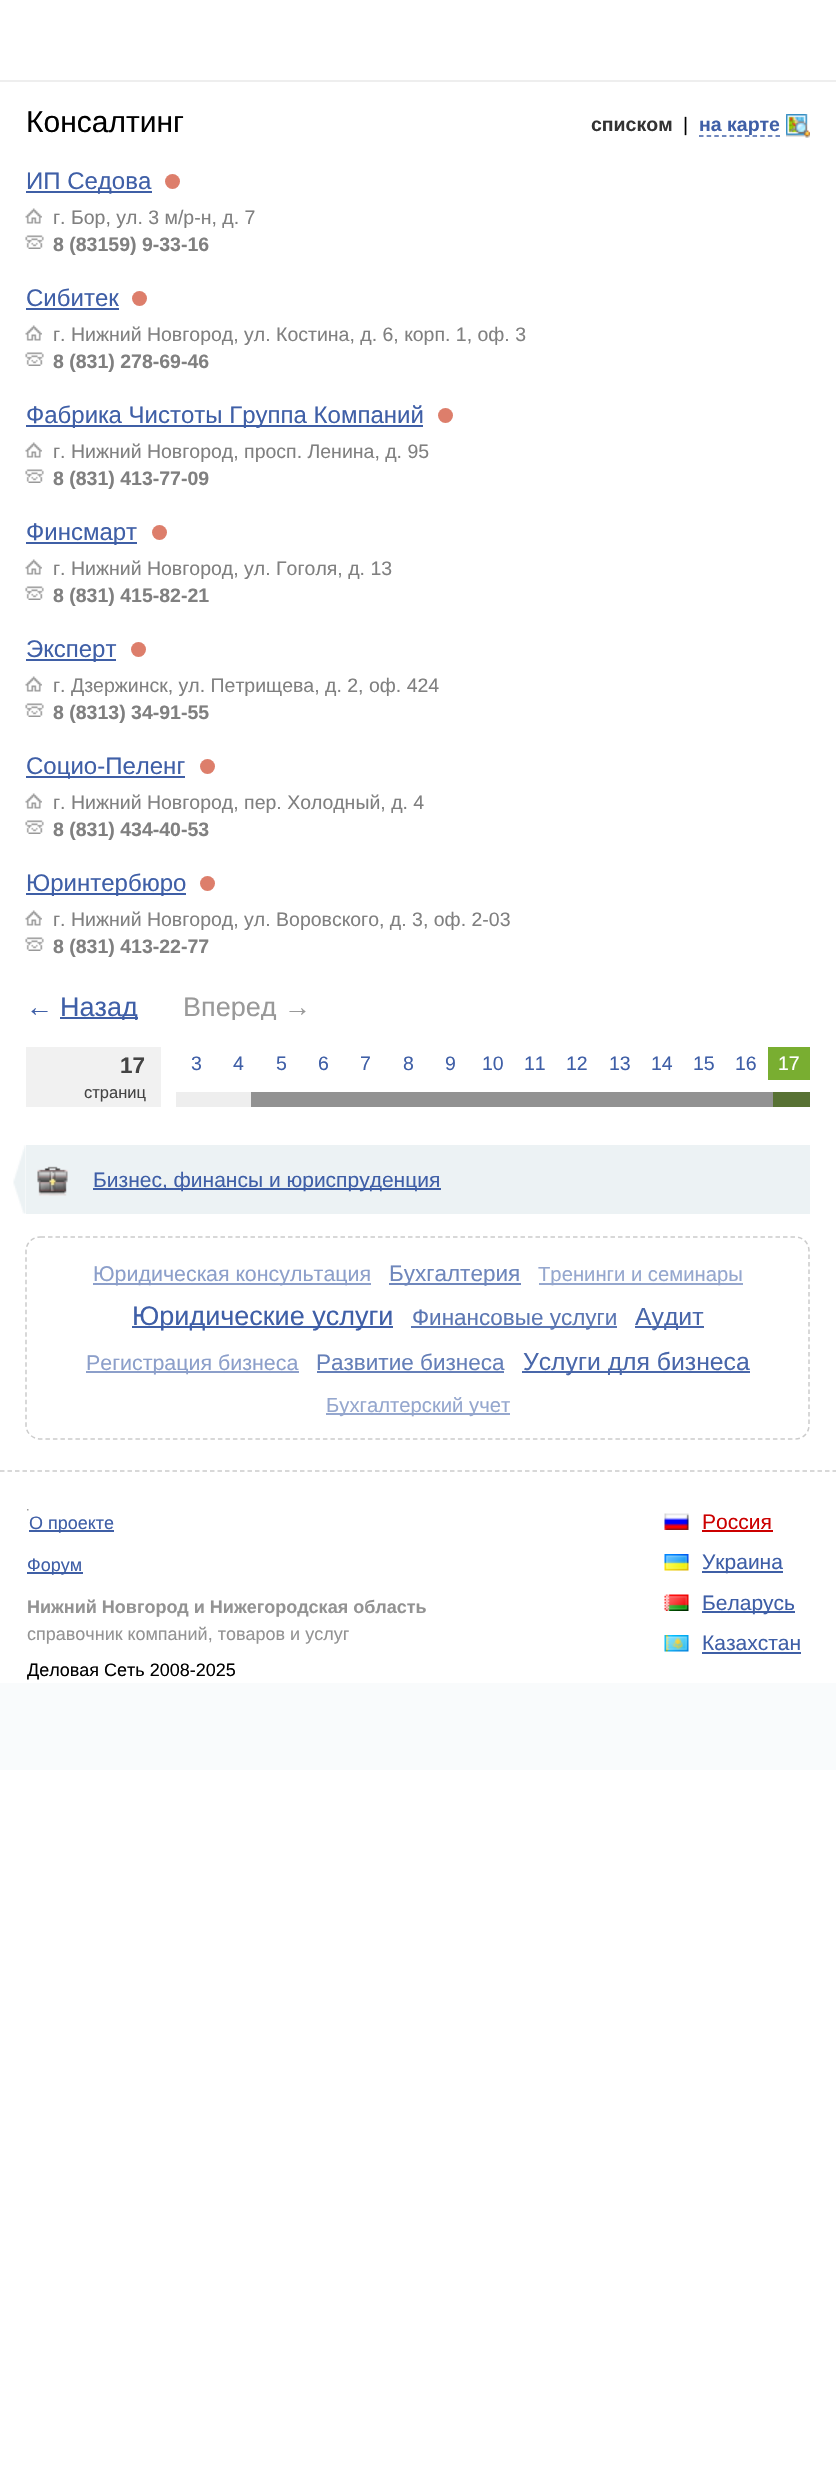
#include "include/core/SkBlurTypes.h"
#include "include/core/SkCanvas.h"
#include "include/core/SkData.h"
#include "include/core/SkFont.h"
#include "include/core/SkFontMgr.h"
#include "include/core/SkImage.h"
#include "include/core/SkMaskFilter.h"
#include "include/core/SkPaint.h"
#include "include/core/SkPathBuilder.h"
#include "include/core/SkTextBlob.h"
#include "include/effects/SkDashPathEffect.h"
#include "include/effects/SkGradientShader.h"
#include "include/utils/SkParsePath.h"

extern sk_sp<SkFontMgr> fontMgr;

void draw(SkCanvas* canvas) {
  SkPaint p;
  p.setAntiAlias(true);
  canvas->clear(SK_ColorWHITE);
  p.setColor(SkColorSetRGB(238, 238, 238));
  canvas->drawRect(SkRect::MakeLTRB(0, 80, 836, 82), p);
  p.setStyle(SkPaint::kStroke_Style);
  p.setStrokeWidth(1.5f);
  p.setColor(SkColorSetRGB(63, 95, 167));
  p.setPathEffect(SkDashPathEffect::Make({{4.5f, 3.15f}}, 0));
  canvas->drawPath(SkPathBuilder().moveTo(699, 136).lineTo(780, 136).detach(), p);
  p.setPathEffect(nullptr);
  canvas->drawImageRect(SkImages::DeferredFromEncodedData(SkData::MakeFromFileName("images/1.png")), SkRect::MakeLTRB(786, 114, 810, 138), SkSamplingOptions());
  p.setStyle(SkPaint::kFill_Style);
  p.setColor(SkColorSetRGB(63, 95, 166));
  canvas->drawRect(SkRect::MakeLTRB(26, 191, 152, 193), p);
  p.setColor(SkColorSetRGB(221, 126, 107));
  canvas->drawCircle(172.5f, 181.5f, 7.5f, p);
  canvas->drawImageRect(SkImages::DeferredFromEncodedData(SkData::MakeFromFileName("images/2.png")), SkRect::MakeLTRB(25, 208, 42, 224), SkSamplingOptions());
  canvas->drawImageRect(SkImages::DeferredFromEncodedData(SkData::MakeFromFileName("images/3.png")), SkRect::MakeLTRB(25, 235, 44, 249), SkSamplingOptions());
  p.setColor(SkColorSetRGB(63, 95, 166));
  canvas->drawRect(SkRect::MakeLTRB(26, 308, 119, 310), p);
  p.setColor(SkColorSetRGB(221, 126, 107));
  canvas->drawCircle(139.5f, 298.5f, 7.5f, p);
  canvas->drawImageRect(SkImages::DeferredFromEncodedData(SkData::MakeFromFileName("images/2.png")), SkRect::MakeLTRB(25, 325, 42, 341), SkSamplingOptions());
  canvas->drawImageRect(SkImages::DeferredFromEncodedData(SkData::MakeFromFileName("images/3.png")), SkRect::MakeLTRB(25, 352, 44, 366), SkSamplingOptions());
  p.setColor(SkColorSetRGB(63, 95, 166));
  canvas->drawRect(SkRect::MakeLTRB(26, 425, 423, 427), p);
  p.setColor(SkColorSetRGB(221, 126, 107));
  canvas->drawCircle(445.5f, 415.5f, 7.5f, p);
  canvas->drawImageRect(SkImages::DeferredFromEncodedData(SkData::MakeFromFileName("images/2.png")), SkRect::MakeLTRB(25, 442, 42, 458), SkSamplingOptions());
  canvas->drawImageRect(SkImages::DeferredFromEncodedData(SkData::MakeFromFileName("images/3.png")), SkRect::MakeLTRB(25, 469, 44, 483), SkSamplingOptions());
  p.setColor(SkColorSetRGB(63, 95, 166));
  canvas->drawRect(SkRect::MakeLTRB(26, 542, 137, 544), p);
  p.setColor(SkColorSetRGB(221, 126, 107));
  canvas->drawCircle(159.5f, 532.5f, 7.5f, p);
  canvas->drawImageRect(SkImages::DeferredFromEncodedData(SkData::MakeFromFileName("images/2.png")), SkRect::MakeLTRB(25, 559, 42, 575), SkSamplingOptions());
  canvas->drawImageRect(SkImages::DeferredFromEncodedData(SkData::MakeFromFileName("images/3.png")), SkRect::MakeLTRB(25, 586, 44, 600), SkSamplingOptions());
  p.setColor(SkColorSetRGB(63, 95, 166));
  canvas->drawRect(SkRect::MakeLTRB(26, 659, 116, 661), p);
  p.setColor(SkColorSetRGB(221, 126, 107));
  canvas->drawCircle(138.5f, 649.5f, 7.5f, p);
  canvas->drawImageRect(SkImages::DeferredFromEncodedData(SkData::MakeFromFileName("images/2.png")), SkRect::MakeLTRB(25, 676, 42, 692), SkSamplingOptions());
  canvas->drawImageRect(SkImages::DeferredFromEncodedData(SkData::MakeFromFileName("images/3.png")), SkRect::MakeLTRB(25, 703, 44, 717), SkSamplingOptions());
  p.setColor(SkColorSetRGB(63, 95, 166));
  canvas->drawRect(SkRect::MakeLTRB(26, 776, 185, 778), p);
  p.setColor(SkColorSetRGB(221, 126, 107));
  canvas->drawCircle(207.5f, 766.5f, 7.5f, p);
  canvas->drawImageRect(SkImages::DeferredFromEncodedData(SkData::MakeFromFileName("images/2.png")), SkRect::MakeLTRB(25, 793, 42, 809), SkSamplingOptions());
  canvas->drawImageRect(SkImages::DeferredFromEncodedData(SkData::MakeFromFileName("images/3.png")), SkRect::MakeLTRB(25, 820, 44, 834), SkSamplingOptions());
  p.setColor(SkColorSetRGB(63, 95, 166));
  canvas->drawRect(SkRect::MakeLTRB(26, 893, 186, 895), p);
  p.setColor(SkColorSetRGB(221, 126, 107));
  canvas->drawCircle(207.5f, 883.5f, 7.5f, p);
  canvas->drawImageRect(SkImages::DeferredFromEncodedData(SkData::MakeFromFileName("images/2.png")), SkRect::MakeLTRB(25, 910, 42, 926), SkSamplingOptions());
  canvas->drawImageRect(SkImages::DeferredFromEncodedData(SkData::MakeFromFileName("images/3.png")), SkRect::MakeLTRB(25, 937, 44, 951), SkSamplingOptions());
  p.setColor(SkColorSetRGB(63, 95, 166));
  canvas->drawRect(SkRect::MakeLTRB(60, 1017, 138, 1019), p);
  p.setColor(SkColorSetRGB(241, 241, 241));
  canvas->drawRect(SkRect::MakeLTRB(26, 1047, 161, 1107), p);
  p.setColor(SkColorSetRGB(121, 174, 49));
  canvas->drawRect(SkRect::MakeLTRB(768, 1047, 810, 1080), p);
  p.setColor(SkColorSetRGB(238, 238, 238));
  canvas->drawRect(SkRect::MakeLTRB(176, 1092, 251, 1107), p);
  p.setColor(SkColorSetRGB(146, 146, 146));
  canvas->drawRect(SkRect::MakeLTRB(251, 1092, 773, 1107), p);
  p.setColor(SkColorSetRGB(88, 114, 52));
  canvas->drawRect(SkRect::MakeLTRB(773, 1092, 810, 1107), p);
  p.setColor(SkColorSetRGB(236, 242, 244));
  canvas->drawRect(SkRect::MakeLTRB(26, 1145, 810, 1214), p);
  canvas->drawImageRect(SkImages::DeferredFromEncodedData(SkData::MakeFromFileName("images/4.png")), SkRect::MakeLTRB(13, 1145, 26, 1214), SkSamplingOptions());
  canvas->drawImageRect(SkImages::DeferredFromEncodedData(SkData::MakeFromFileName("images/5.png")), SkRect::MakeLTRB(37, 1166, 68, 1196), SkSamplingOptions());
  p.setColor(SkColorSetRGB(63, 95, 166));
  canvas->drawRect(SkRect::MakeLTRB(93, 1188, 441, 1190), p);
  p.setStyle(SkPaint::kStroke_Style);
  p.setColor(SkColorSetRGB(204, 204, 204));
  p.setPathEffect(SkDashPathEffect::Make({{4.5f, 3}}, 0));
  canvas->drawPath(SkPathBuilder().moveTo(40.5f, 1237).lineTo(795, 1237).cubicTo(803, 1237, 809, 1243, 809, 1251).lineTo(809, 1425).cubicTo(809, 1433, 803, 1439, 795, 1439).lineTo(40.5f, 1439).cubicTo(32.5f, 1439, 26, 1433, 26, 1425).lineTo(26, 1251).cubicTo(26, 1243, 32.5f, 1237, 40.5f, 1237).close().detach(), p);
  p.setPathEffect(nullptr);
  p.setStyle(SkPaint::kFill_Style);
  p.setColor(SkColorSetRGB(140, 159, 202));
  canvas->drawRect(SkRect::MakeLTRB(93, 1283, 371, 1285), p);
  p.setColor(SkColorSetRGB(111, 135, 188));
  canvas->drawRect(SkRect::MakeLTRB(389, 1283, 521, 1285), p);
  p.setColor(SkColorSetRGB(149, 167, 206));
  canvas->drawRect(SkRect::MakeLTRB(539, 1283, 743, 1285), p);
  p.setColor(SkColorSetRGB(63, 95, 166));
  canvas->drawRect(SkRect::MakeLTRB(132, 1326, 393, 1328), p);
  p.setColor(SkColorSetRGB(92, 119, 179));
  canvas->drawRect(SkRect::MakeLTRB(411, 1326, 617, 1328), p);
  p.setColor(SkColorSetRGB(73, 103, 170));
  canvas->drawRect(SkRect::MakeLTRB(635, 1326, 704, 1328), p);
  p.setColor(SkColorSetRGB(140, 159, 202));
  canvas->drawRect(SkRect::MakeLTRB(86, 1371, 299, 1373), p);
  p.setColor(SkColorSetRGB(101, 127, 184));
  canvas->drawRect(SkRect::MakeLTRB(317, 1371, 504, 1373), p);
  p.setColor(SkColorSetRGB(73, 103, 170));
  canvas->drawRect(SkRect::MakeLTRB(522, 1371, 750, 1373), p);
  p.setColor(SkColorSetRGB(149, 167, 206));
  canvas->drawRect(SkRect::MakeLTRB(326, 1413, 510, 1415), p);
  p.setColor(SkColorSetRGB(249, 251, 252));
  canvas->drawRect(SkRect::MakeLTRB(0, 1683, 836, 1770), p);
  p.setStyle(SkPaint::kStroke_Style);
  p.setColor(SkColorSetRGB(204, 204, 204));
  p.setPathEffect(SkDashPathEffect::Make({{4.5f, 3}}, 0));
  canvas->drawPath(SkPathBuilder().moveTo(0, 1471).lineTo(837, 1471).detach(), p);
  p.setPathEffect(nullptr);
  canvas->drawImageRect(SkImages::DeferredFromEncodedData(SkData::MakeFromFileName("images/6.png")), SkRect::MakeLTRB(27, 1509, 29, 1511), SkSamplingOptions());
  p.setStyle(SkPaint::kFill_Style);
  p.setColor(SkColorSetRGB(63, 95, 166));
  canvas->drawRect(SkRect::MakeLTRB(29, 1530, 114, 1532), p);
  canvas->drawRect(SkRect::MakeLTRB(27, 1572, 83, 1574), p);
  canvas->drawImageRect(SkImages::DeferredFromEncodedData(SkData::MakeFromFileName("images/7.png")), SkRect::MakeLTRB(664, 1513, 689, 1530), SkSamplingOptions());
  p.setColor(SkColorSetRGB(204, 0, 0));
  canvas->drawRect(SkRect::MakeLTRB(702, 1530, 773, 1532), p);
  canvas->drawImageRect(SkImages::DeferredFromEncodedData(SkData::MakeFromFileName("images/8.png")), SkRect::MakeLTRB(664, 1554, 689, 1571), SkSamplingOptions());
  p.setColor(SkColorSetRGB(63, 95, 166));
  canvas->drawRect(SkRect::MakeLTRB(702, 1571, 783, 1573), p);
  canvas->drawImageRect(SkImages::DeferredFromEncodedData(SkData::MakeFromFileName("images/9.png")), SkRect::MakeLTRB(664, 1594, 689, 1611), SkSamplingOptions());
  canvas->drawRect(SkRect::MakeLTRB(702, 1611, 795, 1613), p);
  canvas->drawImageRect(SkImages::DeferredFromEncodedData(SkData::MakeFromFileName("images/10.png")), SkRect::MakeLTRB(664, 1635, 689, 1652), SkSamplingOptions());
  canvas->drawRect(SkRect::MakeLTRB(702, 1652, 801, 1654), p);
  SkFont font1(fontMgr->matchFamilyStyle("Liberation Sans", SkFontStyle::Normal()), 30);
  font1.setSubpixel(true);
  p.setColor(SK_ColorBLACK);
  canvas->drawString("Консалтинг", 26, 132, font1, p);
  SkFont font2(fontMgr->matchFamilyStyle("Liberation Sans", SkFontStyle::Bold()), 19.5f);
  font2.setSubpixel(true);
  p.setColor(SkColorSetRGB(51, 51, 51));
  canvas->drawString("списком", 591, 131, font2, p);
  SkFont font3(fontMgr->matchFamilyStyle("Liberation Sans", SkFontStyle::Normal()), 19.5f);
  font3.setSubpixel(true);
  p.setColor(SK_ColorBLACK);
  canvas->drawString("|", 683, 131, font3, p);
  p.setColor(SkColorSetRGB(63, 95, 167));
  canvas->drawString("на карте", 699, 131, font2, p);
  SkFont font4(fontMgr->matchFamilyStyle("Liberation Sans", SkFontStyle::Normal()), 24);
  font4.setSubpixel(true);
  canvas->drawString("ИП Седова", 26, 189, font4, p);
  p.setColor(SkColorSetRGB(128, 128, 128));
  canvas->drawString("г. Бор, ул. 3 м/р-н, д. 7", 53, 224, font3, p);
  canvas->drawString("8 (83159) 9-33-16", 53, 251, font2, p);
  p.setColor(SkColorSetRGB(63, 95, 167));
  canvas->drawString("Сибитек", 26, 306, font4, p);
  p.setColor(SkColorSetRGB(128, 128, 128));
  canvas->drawString("г. Нижний Новгород, ул. Костина, д. 6, корп. 1, оф. 3", 53, 341, font3, p);
  canvas->drawString("8 (831) 278-69-46", 53, 368, font2, p);
  p.setColor(SkColorSetRGB(63, 95, 167));
  canvas->drawString("Фабрика Чистоты Группа Компаний", 26, 423, font4, p);
  p.setColor(SkColorSetRGB(128, 128, 128));
  canvas->drawString("г. Нижний Новгород, просп. Ленина, д. 95", 53, 458, font3, p);
  canvas->drawString("8 (831) 413-77-09", 53, 485, font2, p);
  p.setColor(SkColorSetRGB(63, 95, 167));
  canvas->drawString("Финсмарт", 26, 540, font4, p);
  p.setColor(SkColorSetRGB(128, 128, 128));
  canvas->drawString("г. Нижний Новгород, ул. Гоголя, д. 13", 53, 575, font3, p);
  canvas->drawString("8 (831) 415-82-21", 53, 602, font2, p);
  p.setColor(SkColorSetRGB(63, 95, 167));
  canvas->drawString("Эксперт", 26, 657, font4, p);
  p.setColor(SkColorSetRGB(128, 128, 128));
  canvas->drawString("г. Дзержинск, ул. Петрищева, д. 2, оф. 424", 53, 692, font3, p);
  canvas->drawString("8 (8313) 34-91-55", 53, 719, font2, p);
  p.setColor(SkColorSetRGB(63, 95, 167));
  canvas->drawString("Социо-Пеленг", 26, 774, font4, p);
  p.setColor(SkColorSetRGB(128, 128, 128));
  canvas->drawString("г. Нижний Новгород, пер. Холодный, д. 4", 53, 809, font3, p);
  canvas->drawString("8 (831) 434-40-53", 53, 836, font2, p);
  p.setColor(SkColorSetRGB(63, 95, 167));
  canvas->drawString("Юринтербюро", 26, 891, font4, p);
  p.setColor(SkColorSetRGB(128, 128, 128));
  canvas->drawString("г. Нижний Новгород, ул. Воровского, д. 3, оф. 2-03", 53, 926, font3, p);
  canvas->drawString("8 (831) 413-22-77", 53, 953, font2, p);
  SkFont font5(fontMgr->matchFamilyStyle("Liberation Sans", SkFontStyle::Normal()), 27);
  font5.setSubpixel(true);
  p.setColor(SkColorSetRGB(63, 95, 167));
  canvas->drawString("←", 26, 1016, font5, p);
  canvas->save();
  canvas->clipRect(SkRect::MakeLTRB(26, 993, 810, 1020));
  canvas->drawString("Назад", 60, 1016, font5, p);
  p.setColor(SkColorSetRGB(153, 153, 153));
  canvas->drawString("Вперед", 183, 1016, font5, p);
  canvas->restore();
  canvas->drawString("→", 284, 1016, font5, p);
  SkFont font6(fontMgr->matchFamilyStyle("Liberation Sans", SkFontStyle::Bold()), 22.5f);
  font6.setSubpixel(true);
  p.setColor(SkColorSetRGB(68, 68, 68));
  canvas->drawString("17", 120, 1073, font6, p);
  SkFont font7(fontMgr->matchFamilyStyle("Liberation Sans", SkFontStyle::Normal()), 16.5f);
  font7.setSubpixel(true);
  canvas->drawString("страниц", 84, 1098, font7, p);
  p.setColor(SkColorSetRGB(63, 95, 167));
  canvas->drawString("3", 191, 1070, font3, p);
  canvas->drawString("4", 233, 1070, font3, p);
  canvas->drawString("5", 276, 1070, font3, p);
  canvas->drawString("6", 318, 1070, font3, p);
  canvas->drawString("7", 360, 1070, font3, p);
  canvas->drawString("8", 403, 1070, font3, p);
  canvas->drawString("9", 445, 1070, font3, p);
  canvas->drawString("10", 482, 1070, font3, p);
  canvas->drawString("11", 524, 1070, font3, p);
  canvas->drawString("12", 566, 1070, font3, p);
  canvas->drawString("13", 609, 1070, font3, p);
  canvas->drawString("14", 651, 1070, font3, p);
  canvas->drawString("15", 693, 1070, font3, p);
  canvas->drawString("16", 735, 1070, font3, p);
  p.setColor(SK_ColorWHITE);
  canvas->drawString("17", 778, 1070, font3, p);
  SkFont font8(fontMgr->matchFamilyStyle("Liberation Sans", SkFontStyle::Normal()), 21);
  font8.setSubpixel(true);
  p.setColor(SkColorSetRGB(63, 95, 167));
  canvas->drawString("Бизнес, финансы и юриспруденция", 93, 1187, font8, p);
  SkFont font9(fontMgr->matchFamilyStyle("Liberation Sans", SkFontStyle::Normal()), 21.4f);
  font9.setSubpixel(true);
  p.setColor(SkColorSetRGB(140, 159, 202));
  canvas->drawString("Юридическая консультация", 93, 1281, font9, p);
  SkFont font10(fontMgr->matchFamilyStyle("Liberation Sans", SkFontStyle::Normal()), 22.5f);
  font10.setSubpixel(true);
  p.setColor(SkColorSetRGB(111, 135, 188));
  canvas->drawString("Бухгалтерия", 389, 1281, font10, p);
  SkFont font11(fontMgr->matchFamilyStyle("Liberation Sans", SkFontStyle::Normal()), 20.25f);
  font11.setSubpixel(true);
  p.setColor(SkColorSetRGB(149, 167, 206));
  canvas->drawString("Тренинги и семинары", 538, 1281, font11, p);
  p.setColor(SkColorSetRGB(63, 95, 167));
  canvas->drawString("Юридические услуги", 132, 1325, font5, p);
  p.setColor(SkColorSetRGB(92, 119, 179));
  canvas->drawString("Финансовые услуги", 412, 1325, font10, p);
  SkFont font12(fontMgr->matchFamilyStyle("Liberation Sans", SkFontStyle::Normal()), 24.75f);
  font12.setSubpixel(true);
  p.setColor(SkColorSetRGB(73, 103, 170));
  canvas->drawString("Аудит", 635, 1325, font12, p);
  p.setColor(SkColorSetRGB(140, 159, 202));
  canvas->drawString("Регистрация бизнеса", 86, 1370, font9, p);
  p.setColor(SkColorSetRGB(101, 127, 184));
  canvas->drawString("Развитие бизнеса", 316, 1370, font10, p);
  p.setColor(SkColorSetRGB(73, 103, 170));
  canvas->drawString("Услуги для бизнеса", 523, 1370, font12, p);
  p.setColor(SkColorSetRGB(149, 167, 206));
  canvas->drawString("Бухгалтерский учет", 326, 1412, font11, p);
  SkFont font13(fontMgr->matchFamilyStyle("Liberation Sans", SkFontStyle::Normal()), 18);
  font13.setSubpixel(true);
  p.setColor(SkColorSetRGB(63, 95, 167));
  canvas->drawString("О проекте", 29, 1529, font13, p);
  canvas->drawString("Форум", 27, 1571, font13, p);
  p.setColor(SkColorSetRGB(204, 0, 0));
  canvas->drawString("Россия", 702, 1529, font8, p);
  p.setColor(SkColorSetRGB(63, 95, 167));
  canvas->drawString("Украина", 702, 1569, font8, p);
  canvas->drawString("Беларусь", 702, 1610, font8, p);
  canvas->drawString("Казахстан", 702, 1650, font8, p);
  SkFont font14(fontMgr->matchFamilyStyle("Liberation Sans", SkFontStyle::Bold()), 18);
  font14.setSubpixel(true);
  p.setColor(SkColorSetRGB(147, 147, 147));
  canvas->drawString("Нижний Новгород и Нижегородская область", 27, 1613, font14, p);
  canvas->drawString("справочник компаний, товаров и услуг", 27, 1640, font13, p);
  p.setColor(SK_ColorBLACK);
  canvas->drawString("Деловая Сеть 2008-2025", 27, 1676, font13, p);
}
